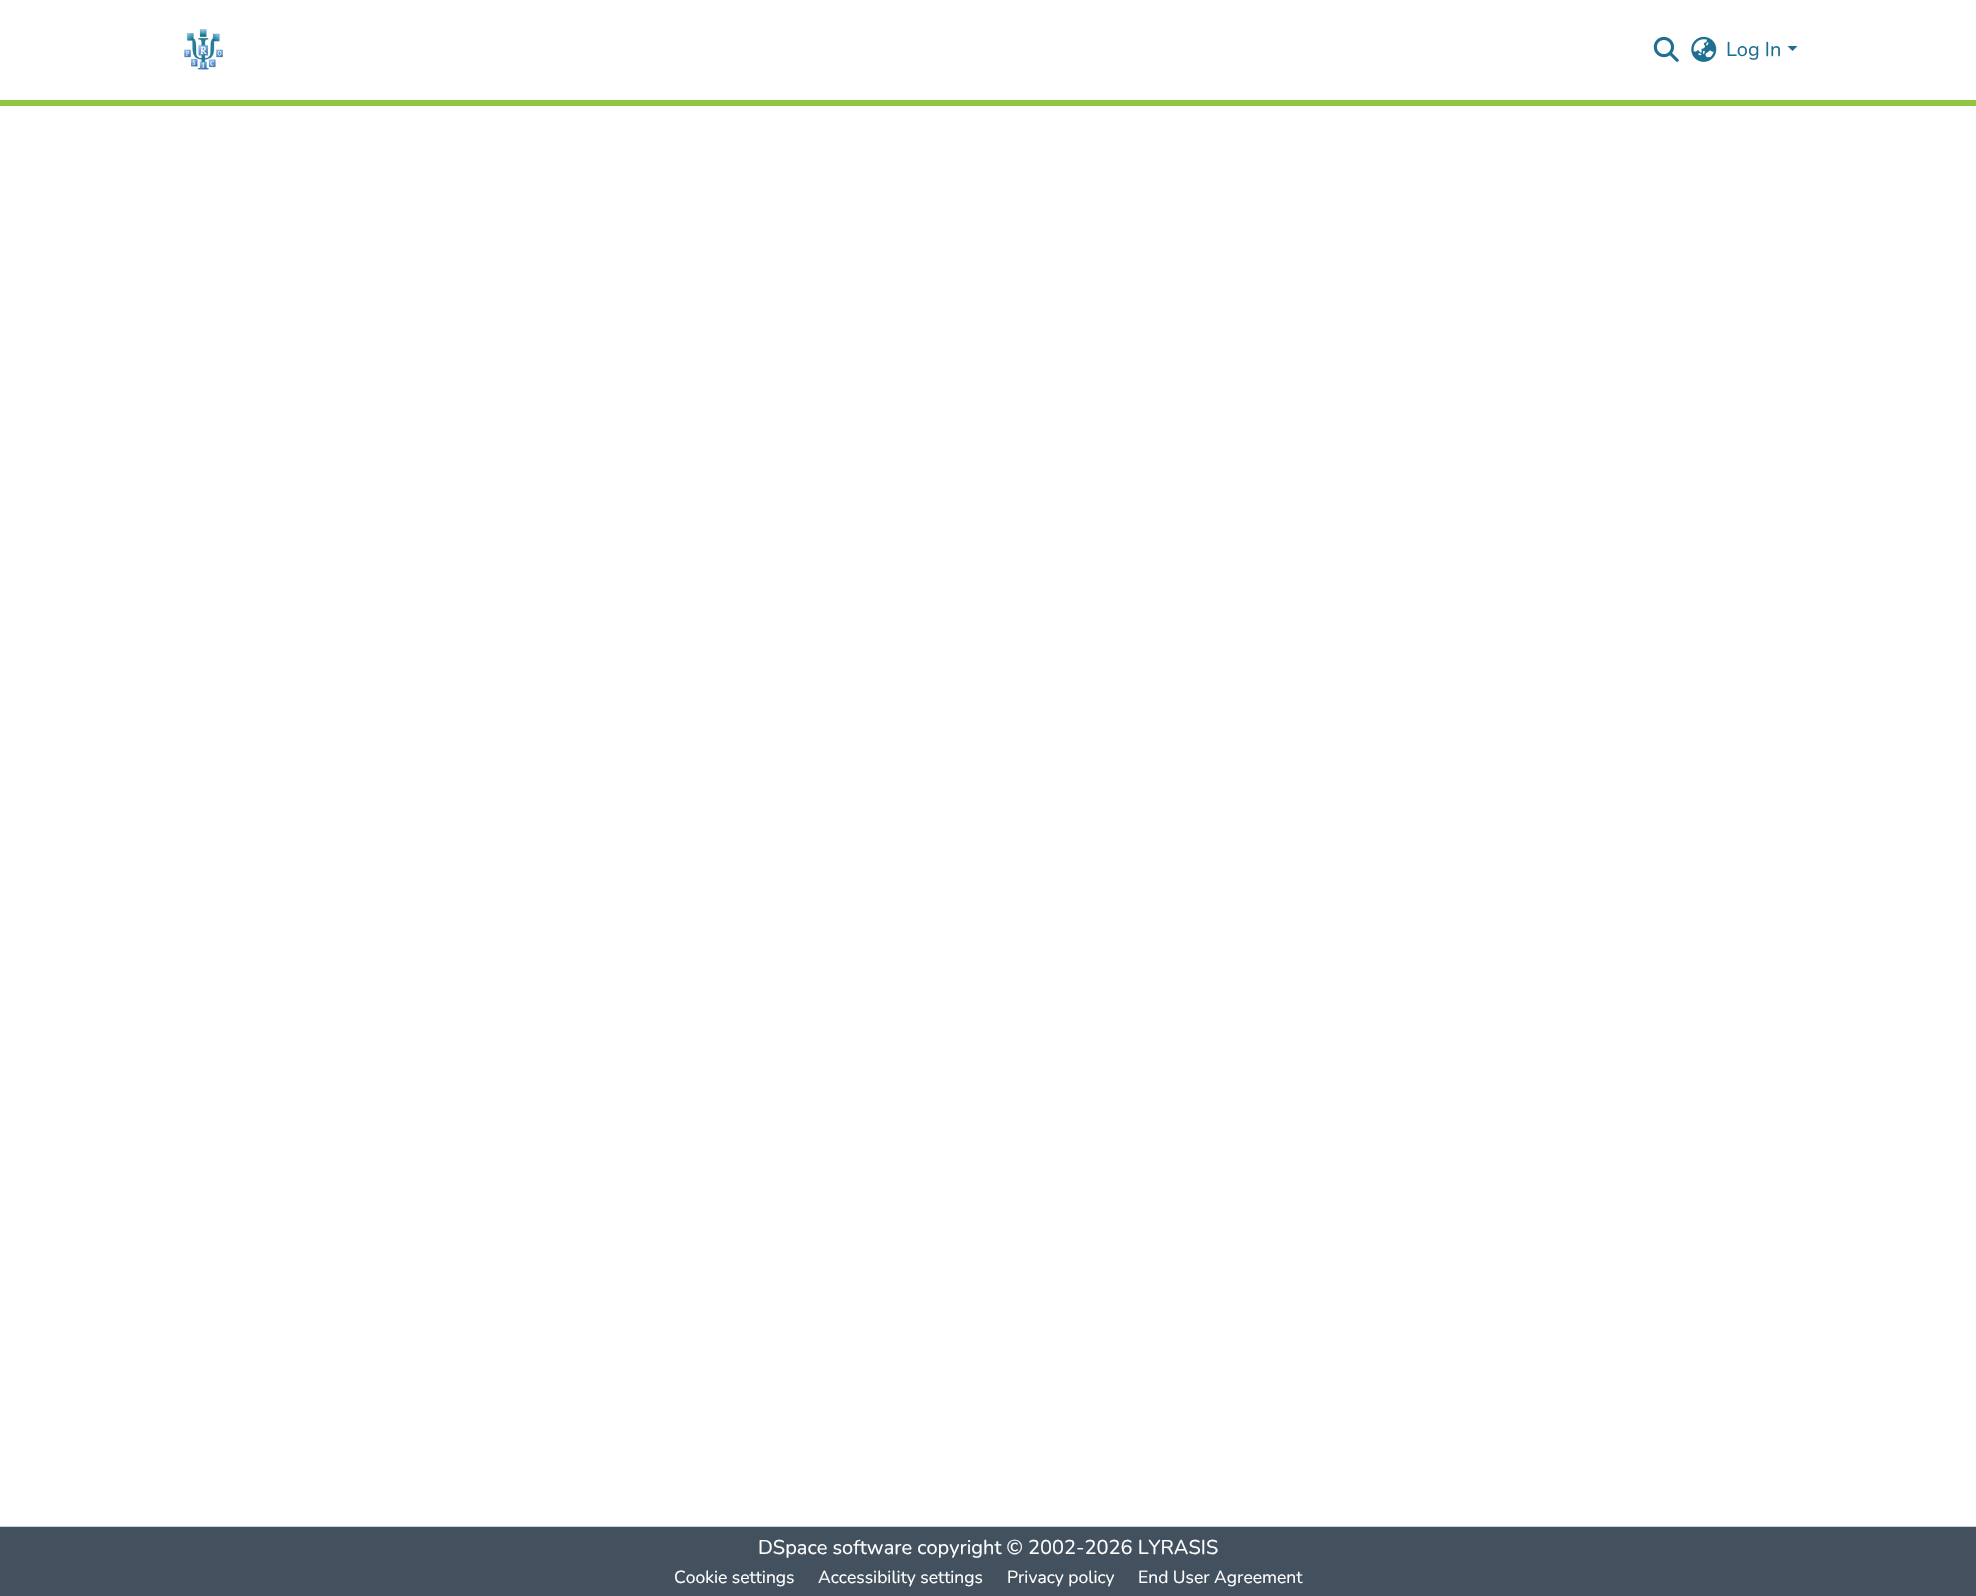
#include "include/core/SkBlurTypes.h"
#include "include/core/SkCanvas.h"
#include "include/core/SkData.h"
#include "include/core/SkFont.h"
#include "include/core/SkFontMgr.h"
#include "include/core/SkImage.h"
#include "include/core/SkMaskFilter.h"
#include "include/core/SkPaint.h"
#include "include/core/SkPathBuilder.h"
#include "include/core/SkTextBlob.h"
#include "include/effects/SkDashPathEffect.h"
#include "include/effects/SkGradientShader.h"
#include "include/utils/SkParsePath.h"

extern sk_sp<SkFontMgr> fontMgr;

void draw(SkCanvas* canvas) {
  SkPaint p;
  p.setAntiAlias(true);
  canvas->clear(SK_ColorWHITE);
  p.setColor(SkColorSetRGB(146, 198, 66));
  canvas->drawRect(SkRect::MakeLTRB(0, 100, 1976, 106), p);
  canvas->drawImageRect(SkImages::DeferredFromEncodedData(SkData::MakeFromFileName("images/1.png")), SkRect::MakeLTRB(184, 29, 223, 70), SkSamplingOptions());
  canvas->drawImageRect(SkImages::DeferredFromEncodedData(SkData::MakeFromFileName("images/2.png")), SkRect::MakeLTRB(1653, 36, 1679, 62), SkSamplingOptions());
  canvas->drawImageRect(SkImages::DeferredFromEncodedData(SkData::MakeFromFileName("images/3.png")), SkRect::MakeLTRB(1691, 36, 1717, 62), SkSamplingOptions());
  p.setColor(SkColorSetRGB(30, 111, 144));
  canvas->drawPath(SkPathBuilder().moveTo(1787.5f, 46).lineTo(1797.5f, 46).lineTo(1792.5f, 51).close().detach(), p);
  p.setColor(SkColorSetRGB(67, 81, 95));
  canvas->drawRect(SkRect::MakeLTRB(0, 1527, 1976, 1596), p);
  p.setColor(SkColorSetRGB(206, 212, 218));
  canvas->drawRect(SkRect::MakeLTRB(0, 1526, 1976, 1527), p);
  p.setColor(SkColorSetRGB(73, 80, 87));
  canvas->drawRect(SkRect::MakeLTRB(805, 1563, 806, 1591), p);
  canvas->drawRect(SkRect::MakeLTRB(994, 1563, 995, 1591), p);
  canvas->drawRect(SkRect::MakeLTRB(1125, 1563, 1126, 1591), p);
  SkFont font1(fontMgr->matchFamilyStyle("Nunito", SkFontStyle::Normal()), 20);
  font1.setSubpixel(true);
  p.setColor(SkColorSetRGB(30, 111, 144));
  canvas->drawString("Log In", 1726, 56, font1, p);
  p.setColor(SK_ColorWHITE);
  canvas->drawString("DSpace software copyright © 2002-2026 LYRASIS", 758, 1554, font1, p);
  SkFont font2(fontMgr->matchFamilyStyle("Nunito", SkFontStyle::Normal()), 17.5f);
  font2.setSubpixel(true);
  canvas->drawString("Cookie settings", 674, 1583, font2, p);
  canvas->drawString("Accessibility settings", 818, 1583, font2, p);
  canvas->drawString("Privacy policy", 1007, 1583, font2, p);
  canvas->drawString("End User Agreement", 1138, 1583, font2, p);
}
